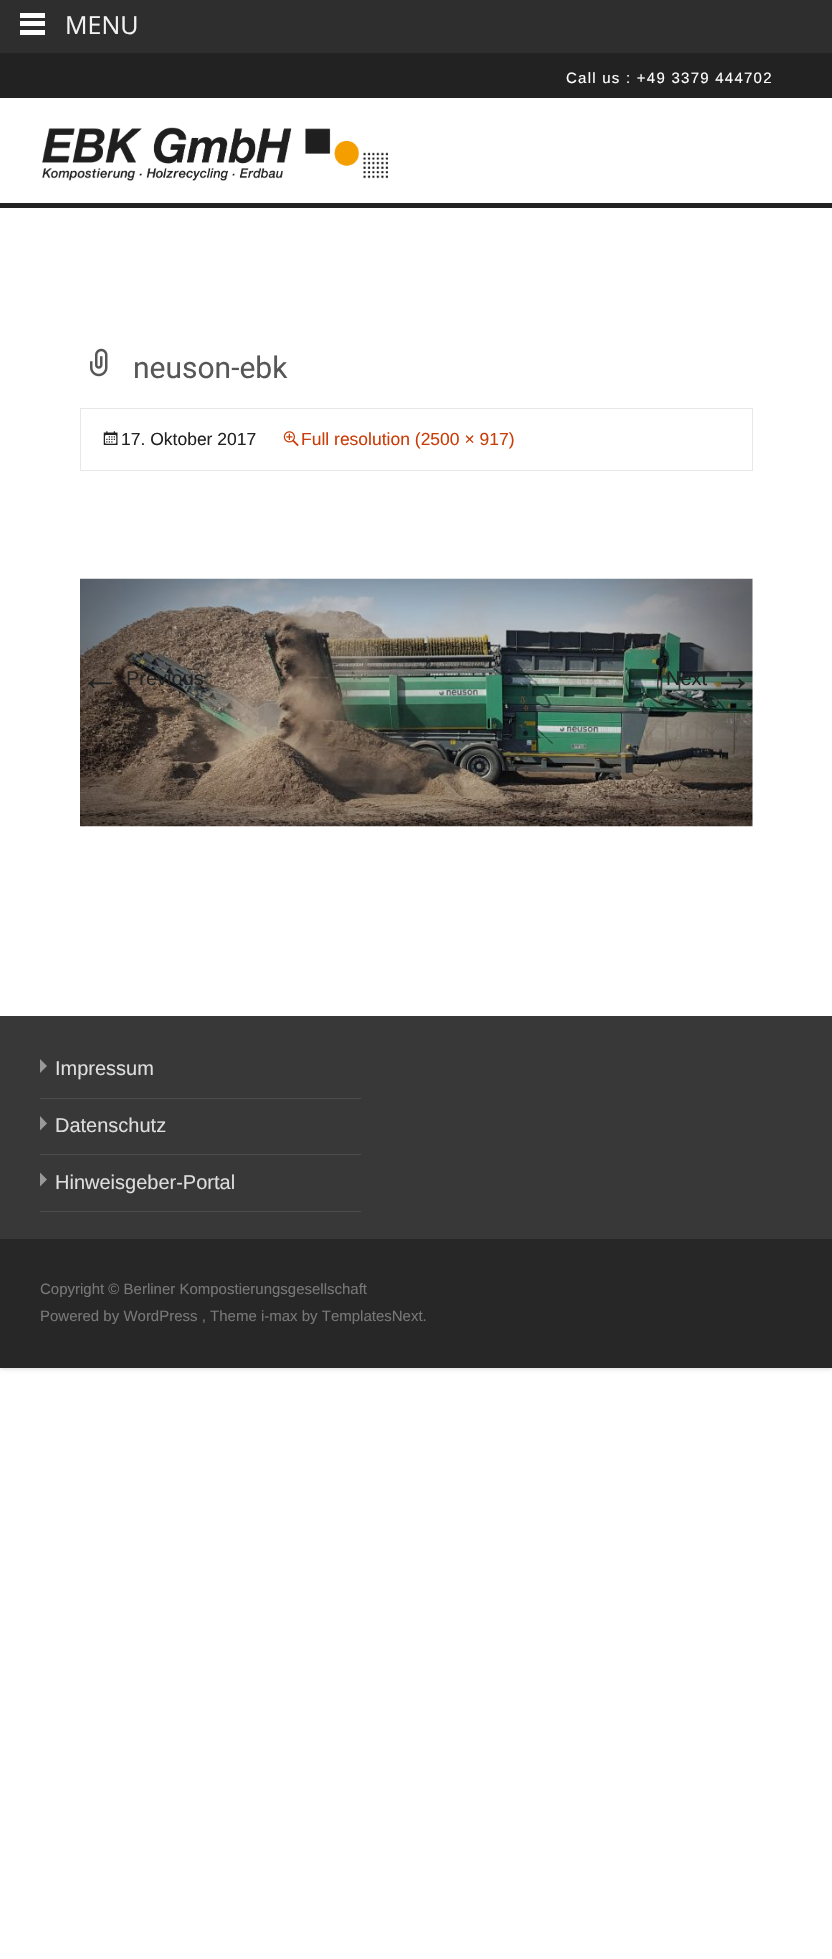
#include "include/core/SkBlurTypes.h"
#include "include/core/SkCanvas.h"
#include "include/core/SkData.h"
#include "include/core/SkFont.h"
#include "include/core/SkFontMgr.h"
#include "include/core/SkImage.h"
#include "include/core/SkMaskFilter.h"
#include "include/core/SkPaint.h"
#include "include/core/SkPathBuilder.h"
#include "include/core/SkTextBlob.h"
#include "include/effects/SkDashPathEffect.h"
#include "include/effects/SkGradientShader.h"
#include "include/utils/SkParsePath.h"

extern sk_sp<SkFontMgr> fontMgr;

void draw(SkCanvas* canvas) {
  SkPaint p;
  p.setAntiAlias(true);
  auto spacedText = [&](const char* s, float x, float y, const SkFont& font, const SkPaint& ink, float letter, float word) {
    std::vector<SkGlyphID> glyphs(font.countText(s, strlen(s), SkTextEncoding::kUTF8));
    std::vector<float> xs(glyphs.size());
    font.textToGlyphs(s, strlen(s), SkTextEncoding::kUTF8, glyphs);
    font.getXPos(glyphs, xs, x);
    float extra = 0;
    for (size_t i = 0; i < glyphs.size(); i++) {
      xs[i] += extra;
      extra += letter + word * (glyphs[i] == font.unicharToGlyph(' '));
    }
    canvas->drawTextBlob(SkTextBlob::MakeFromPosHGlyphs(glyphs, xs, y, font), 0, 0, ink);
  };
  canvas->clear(SK_ColorWHITE);
  p.setColor(SkColorSetARGB(26, 0, 0, 0));
  p.setMaskFilter(SkMaskFilter::MakeBlur(kNormal_SkBlurStyle, 2.5f));
  canvas->drawRoundRect(SkRect::MakeLTRB(0, 53, 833, 1368), 2.5f, 2.5f, p);
  p.setMaskFilter(nullptr);
  p.setMaskFilter(SkMaskFilter::MakeBlur(kNormal_SkBlurStyle, 2.5f));
  canvas->drawRoundRect(SkRect::MakeLTRB(0, 53, 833, 1368), 2.5f, 2.5f, p);
  p.setMaskFilter(nullptr);
  p.setColor(SkColorSetRGB(46, 46, 46));
  canvas->drawRect(SkRect::MakeLTRB(0, 0, 832, 53), p);
  p.setColor(SK_ColorWHITE);
  canvas->drawRect(SkRect::MakeLTRB(20, 13, 45, 18), p);
  canvas->drawRect(SkRect::MakeLTRB(20, 21, 45, 26), p);
  canvas->drawRect(SkRect::MakeLTRB(20, 30, 45, 35), p);
  canvas->drawRect(SkRect::MakeLTRB(0, 98, 832, 1016), p);
  p.setColor(SkColorSetRGB(34, 34, 34));
  canvas->drawRect(SkRect::MakeLTRB(0, 53, 832, 98), p);
  canvas->drawRect(SkRect::MakeLTRB(0, 203, 832, 208), p);
  canvas->drawImageRect(SkImages::DeferredFromEncodedData(SkData::MakeFromFileName("images/1.png")), SkRect::MakeLTRB(42, 127, 388, 181), SkSamplingOptions());
  canvas->drawImageRect(SkImages::DeferredFromEncodedData(SkData::MakeFromFileName("images/2.png")), SkRect::MakeLTRB(90, 348, 108, 377), SkSamplingOptions());
  p.setStyle(SkPaint::kStroke_Style);
  p.setStrokeWidth(1);
  p.setColor(SkColorSetRGB(231, 231, 231));
  canvas->drawRect(SkRect::MakeLTRB(80.5f, 408.5f, 752.5f, 470.5f), p);
  canvas->drawImageRect(SkImages::DeferredFromEncodedData(SkData::MakeFromFileName("images/3.png")), SkRect::MakeLTRB(103, 431, 118, 445), SkSamplingOptions());
  canvas->drawImageRect(SkImages::DeferredFromEncodedData(SkData::MakeFromFileName("images/4.png")), SkRect::MakeLTRB(283, 431, 299, 447), SkSamplingOptions());
  canvas->drawImageRect(SkImages::DeferredFromEncodedData(SkData::MakeFromFileName("images/5.png")), SkRect::MakeLTRB(80, 578, 753, 827), SkSamplingOptions());
  p.setStyle(SkPaint::kFill_Style);
  p.setColor(SkColorSetRGB(39, 39, 39));
  canvas->drawRect(SkRect::MakeLTRB(0, 1239, 832, 1368), p);
  p.setColor(SkColorSetRGB(56, 56, 56));
  canvas->drawRect(SkRect::MakeLTRB(0, 1016, 832, 1239), p);
  p.setColor(SkColorSetRGB(76, 76, 76));
  canvas->drawRect(SkRect::MakeLTRB(40, 1098, 361, 1099), p);
  p.setColor(SkColorSetRGB(153, 153, 153));
  canvas->drawPath(SkPathBuilder().moveTo(40, 1073).lineTo(47, 1066).lineTo(40, 1059).close().detach(), p);
  p.setColor(SkColorSetRGB(76, 76, 76));
  canvas->drawRect(SkRect::MakeLTRB(40, 1154, 361, 1155), p);
  p.setColor(SkColorSetRGB(153, 153, 153));
  canvas->drawPath(SkPathBuilder().moveTo(40, 1130.5f).lineTo(47, 1123.5f).lineTo(40, 1116).close().detach(), p);
  p.setColor(SkColorSetRGB(76, 76, 76));
  canvas->drawRect(SkRect::MakeLTRB(40, 1211, 361, 1212), p);
  p.setColor(SkColorSetRGB(153, 153, 153));
  canvas->drawPath(SkPathBuilder().moveTo(40, 1186.5f).lineTo(47, 1179.5f).lineTo(40, 1172.5f).close().detach(), p);
  SkFont font1(fontMgr->matchFamilyStyle("Open Sans", SkFontStyle::Normal()), 25);
  font1.setSubpixel(true);
  p.setColor(SkColorSetRGB(242, 242, 242));
  canvas->drawString("MENU", 65, 34, font1, p);
  SkFont font2(fontMgr->matchFamilyStyle("Liberation Sans", SkFontStyle::Normal()), 15);
  font2.setSubpixel(true);
  p.setColor(SK_ColorWHITE);
  spacedText("Call us : +49 3379 444702", 566, 83, font2, p, 1.25f, 0);
  SkFont font3(fontMgr->matchFamilyStyle("Roboto", SkFontStyle::Normal()), 30);
  font3.setSubpixel(true);
  p.setColor(SkColorSetRGB(87, 87, 87));
  canvas->drawString("neuson-ebk", 133, 378, font3, p);
  SkFont font4(fontMgr->matchFamilyStyle("Liberation Sans", SkFontStyle::Normal()), 17.5f);
  font4.setSubpixel(true);
  p.setColor(SkColorSetRGB(34, 34, 34));
  canvas->drawString("17. Oktober 2017", 121, 445, font4, p);
  p.setColor(SkColorSetRGB(202, 60, 8));
  canvas->drawString("Full resolution (2500 × 917)", 301, 445, font4, p);
  SkFont font5(fontMgr->matchFamilyStyle("Liberation Sans", SkFontStyle::Normal()), 40);
  font5.setSubpixel(true);
  p.setColor(SkColorSetRGB(34, 34, 34));
  canvas->drawString("←", 80, 690, font5, p);
  SkFont font6(fontMgr->matchFamilyStyle("Liberation Sans", SkFontStyle::Normal()), 20);
  font6.setSubpixel(true);
  canvas->drawString("Previous", 126, 685, font6, p);
  canvas->drawString("Next", 666, 685, font6, p);
  canvas->drawString("→", 713, 690, font5, p);
  p.setColor(SkColorSetRGB(221, 221, 221));
  canvas->drawString("Impressum", 55, 1075, font6, p);
  canvas->drawString("Datenschutz", 55, 1132, font6, p);
  canvas->drawString("Hinweisgeber-Portal", 55, 1189, font6, p);
  p.setColor(SkColorSetRGB(119, 119, 119));
  canvas->drawString("Copyright © Berliner Kompostierungsgesellschaft", 40, 1294, font2, p);
  canvas->drawString("Powered by WordPress , Theme i-max by TemplatesNext.", 40, 1321, font2, p);
}
